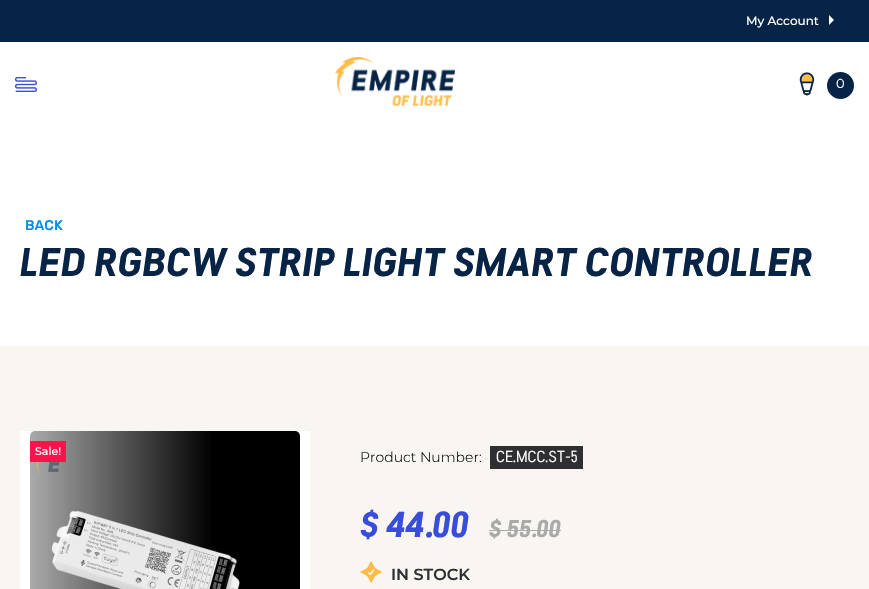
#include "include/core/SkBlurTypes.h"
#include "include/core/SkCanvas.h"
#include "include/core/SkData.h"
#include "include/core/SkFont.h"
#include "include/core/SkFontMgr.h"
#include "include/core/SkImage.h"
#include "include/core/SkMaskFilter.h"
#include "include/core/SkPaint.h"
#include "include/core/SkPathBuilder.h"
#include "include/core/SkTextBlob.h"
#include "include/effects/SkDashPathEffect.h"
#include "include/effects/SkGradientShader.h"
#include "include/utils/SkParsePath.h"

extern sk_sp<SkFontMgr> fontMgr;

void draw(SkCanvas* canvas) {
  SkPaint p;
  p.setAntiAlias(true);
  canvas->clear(SK_ColorWHITE);
  p.setColor(SkColorSetRGB(7, 36, 70));
  canvas->drawRect(SkRect::MakeLTRB(0, 0, 869, 42), p);
  canvas->drawImageRect(SkImages::DeferredFromEncodedData(SkData::MakeFromFileName("images/1.png")), SkRect::MakeLTRB(829, 15, 834, 25), SkSamplingOptions());
  canvas->drawImageRect(SkImages::DeferredFromEncodedData(SkData::MakeFromFileName("images/2.png")), SkRect::MakeLTRB(15, 77, 37, 92), SkSamplingOptions());
  canvas->drawImageRect(SkImages::DeferredFromEncodedData(SkData::MakeFromFileName("images/3.png")), SkRect::MakeLTRB(335, 57, 455, 106), SkSamplingOptions());
  canvas->drawImageRect(SkImages::DeferredFromEncodedData(SkData::MakeFromFileName("images/4.png")), SkRect::MakeLTRB(799, 72, 815, 96), SkSamplingOptions());
  canvas->drawCircle(840.5f, 85.5f, 13.5f, p);
  p.setColor(SkColorSetRGB(249, 246, 242));
  canvas->drawRect(SkRect::MakeLTRB(0, 346, 869, 589), p);
  p.setColor(SK_ColorWHITE);
  canvas->drawRect(SkRect::MakeLTRB(20, 431, 310, 589), p);
  canvas->drawImageRect(SkImages::DeferredFromEncodedData(SkData::MakeFromFileName("images/5.png")), SkRect::MakeLTRB(30, 431, 300, 589), SkSamplingOptions());
  canvas->drawImageRect(SkImages::DeferredFromEncodedData(SkData::MakeFromFileName("images/6.png")), SkRect::MakeLTRB(36, 462, 60, 476), SkSamplingOptions());
  p.setColor(SkColorSetRGB(255, 17, 76));
  canvas->drawRect(SkRect::MakeLTRB(30, 441, 66, 462), p);
  p.setColor(SkColorSetRGB(46, 46, 51));
  canvas->drawRect(SkRect::MakeLTRB(490, 446, 583, 469), p);
  p.setColor(SkColorSetRGB(172, 170, 169));
  canvas->drawRect(SkRect::MakeLTRB(489, 530, 561, 531), p);
  canvas->drawImageRect(SkImages::DeferredFromEncodedData(SkData::MakeFromFileName("images/7.png")), SkRect::MakeLTRB(360, 561, 382, 583), SkSamplingOptions());
  SkFont font1(fontMgr->matchFamilyStyle("Montserrat", SkFontStyle(500, SkFontStyle::kNormal_Width, SkFontStyle::kUpright_Slant)), 12);
  font1.setSubpixel(true);
  p.setColor(SK_ColorWHITE);
  canvas->drawString("My Account", 746, 25, font1, p);
  SkFont font2(fontMgr->matchFamilyStyle("Montserrat", SkFontStyle::Normal()), 13);
  font2.setSubpixel(true);
  canvas->drawString("0", 836, 88, font2, p);
  SkFont font3(fontMgr->matchFamilyStyle("Rubik", SkFontStyle(500, SkFontStyle::kNormal_Width, SkFontStyle::kUpright_Slant)), 14);
  font3.setSubpixel(true);
  p.setColor(SkColorSetRGB(0, 145, 234));
  canvas->drawString("BACK", 25, 230, font3, p);
  SkFont font4(fontMgr->matchFamilyStyle("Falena", SkFontStyle::BoldItalic()), 40);
  font4.setSubpixel(true);
  p.setColor(SkColorSetRGB(7, 36, 70));
  canvas->drawString("LED RGBCW STRIP LIGHT SMART CONTROLLER", 20, 276, font4, p);
  SkFont font5(fontMgr->matchFamilyStyle("Montserrat", SkFontStyle(500, SkFontStyle::kNormal_Width, SkFontStyle::kUpright_Slant)), 11);
  font5.setSubpixel(true);
  p.setColor(SK_ColorWHITE);
  canvas->drawString("Sale!", 35, 455, font5, p);
  SkFont font6(fontMgr->matchFamilyStyle("Montserrat", SkFontStyle(300, SkFontStyle::kNormal_Width, SkFontStyle::kUpright_Slant)), 14);
  font6.setSubpixel(true);
  p.setColor(SK_ColorBLACK);
  canvas->drawString("Product Number:", 360, 462, font6, p);
  SkFont font7(fontMgr->matchFamilyStyle("Falena", SkFontStyle(300, SkFontStyle::kNormal_Width, SkFontStyle::kUpright_Slant)), 16);
  font7.setSubpixel(true);
  p.setColor(SK_ColorWHITE);
  canvas->drawString("CE.MCC.ST-5", 496, 462, font7, p);
  SkFont font8(fontMgr->matchFamilyStyle("Falena", SkFontStyle::BoldItalic()), 36);
  font8.setSubpixel(true);
  p.setColor(SkColorSetRGB(56, 77, 218));
  canvas->drawString("$ 44.00", 360, 537, font8, p);
  SkFont font9(fontMgr->matchFamilyStyle("Falena", SkFontStyle::BoldItalic()), 24);
  font9.setSubpixel(true);
  p.setColor(SkColorSetRGB(172, 170, 169));
  canvas->drawString("$ 55.00", 489, 537, font9, p);
  SkFont font10(fontMgr->matchFamilyStyle("Montserrat", SkFontStyle(600, SkFontStyle::kNormal_Width, SkFontStyle::kUpright_Slant)), 16);
  font10.setSubpixel(true);
  p.setColor(SkColorSetRGB(46, 46, 51));
  canvas->drawString("IN STOCK", 391, 580, font10, p);
}
